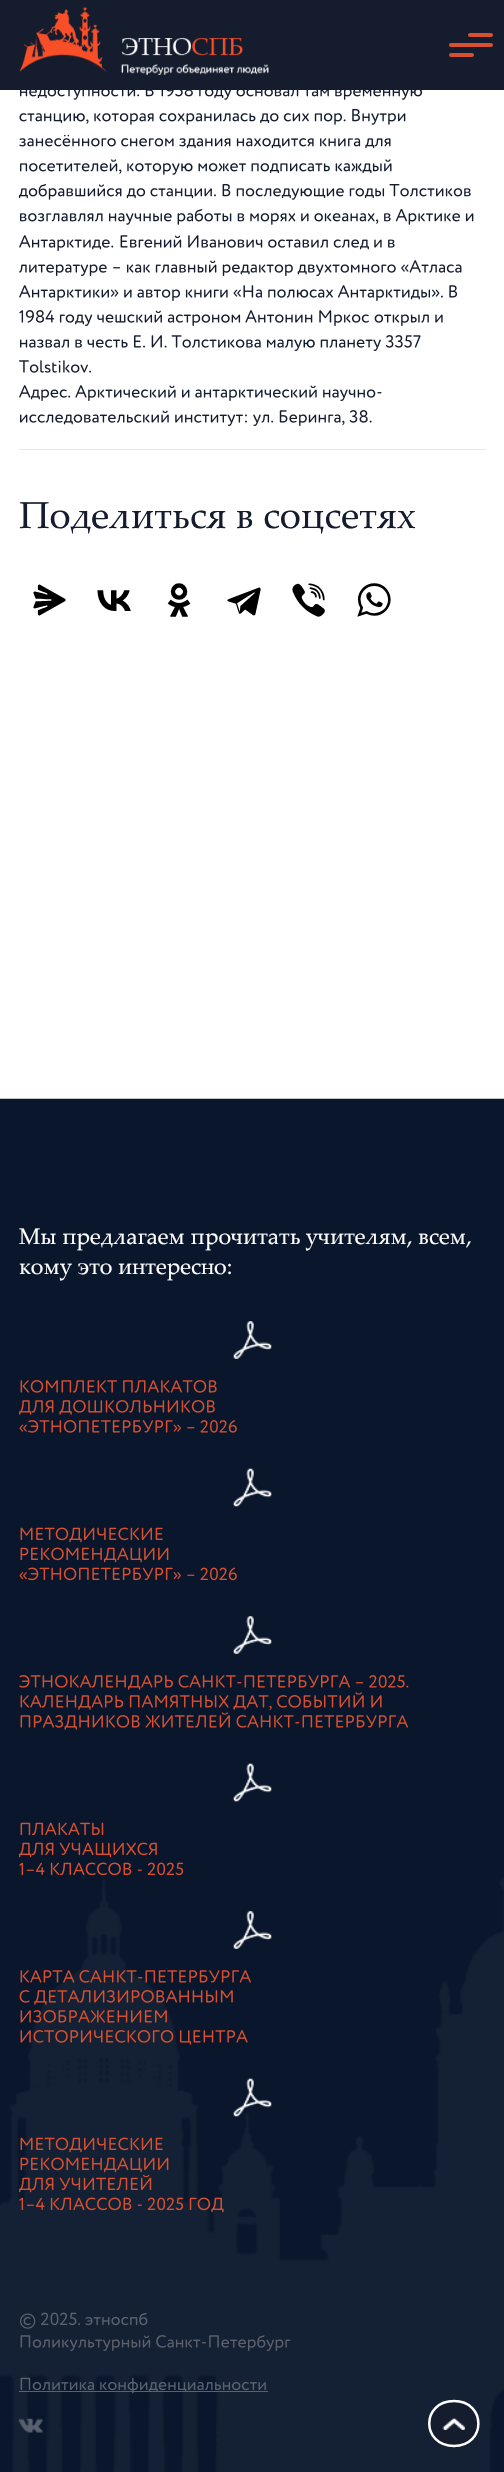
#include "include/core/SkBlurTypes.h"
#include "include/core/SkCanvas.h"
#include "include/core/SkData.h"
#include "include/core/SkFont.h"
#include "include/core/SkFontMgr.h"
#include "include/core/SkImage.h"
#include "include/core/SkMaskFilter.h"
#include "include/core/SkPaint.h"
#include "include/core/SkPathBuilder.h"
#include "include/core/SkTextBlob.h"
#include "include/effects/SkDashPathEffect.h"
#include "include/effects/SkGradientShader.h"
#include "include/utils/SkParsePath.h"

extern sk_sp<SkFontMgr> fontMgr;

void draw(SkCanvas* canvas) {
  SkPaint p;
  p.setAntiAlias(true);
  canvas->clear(SK_ColorWHITE);
  p.setColor(SkColorSetRGB(21, 28, 46));
  canvas->drawRect(SkRect::MakeLTRB(0, 0, 504, 90), p);
  canvas->drawImageRect(SkImages::DeferredFromEncodedData(SkData::MakeFromFileName("images/1.png")), SkRect::MakeLTRB(19, 7, 269, 75), SkSamplingOptions());
  p.setColor(SkColorSetRGB(216, 80, 47));
  canvas->drawRoundRect(SkRect::MakeLTRB(449, 43, 493, 47), 2, 2, p);
  canvas->drawRoundRect(SkRect::MakeLTRB(468, 33, 493, 37), 2, 2, p);
  canvas->drawRoundRect(SkRect::MakeLTRB(449, 53, 474, 57), 2, 2, p);
  p.setColor(SkColorSetRGB(231, 232, 234));
  canvas->drawRect(SkRect::MakeLTRB(19, 449, 486, 450), p);
  canvas->drawImageRect(SkImages::DeferredFromEncodedData(SkData::MakeFromFileName("images/2.png")), SkRect::MakeLTRB(20, 90, 423, 100), SkSamplingOptions());
  canvas->drawImageRect(SkImages::DeferredFromEncodedData(SkData::MakeFromFileName("images/3.png")), SkRect::MakeLTRB(19, 108, 406, 125), SkSamplingOptions());
  canvas->drawImageRect(SkImages::DeferredFromEncodedData(SkData::MakeFromFileName("images/4.png")), SkRect::MakeLTRB(19, 134, 391, 149), SkSamplingOptions());
  canvas->drawImageRect(SkImages::DeferredFromEncodedData(SkData::MakeFromFileName("images/5.png")), SkRect::MakeLTRB(20, 159, 392, 175), SkSamplingOptions());
  canvas->drawImageRect(SkImages::DeferredFromEncodedData(SkData::MakeFromFileName("images/6.png")), SkRect::MakeLTRB(18, 183, 471, 200), SkSamplingOptions());
  canvas->drawImageRect(SkImages::DeferredFromEncodedData(SkData::MakeFromFileName("images/7.png")), SkRect::MakeLTRB(20, 208, 474, 225), SkSamplingOptions());
  canvas->drawImageRect(SkImages::DeferredFromEncodedData(SkData::MakeFromFileName("images/8.png")), SkRect::MakeLTRB(19, 235, 114, 251), SkSamplingOptions());
  canvas->drawImageRect(SkImages::DeferredFromEncodedData(SkData::MakeFromFileName("images/9.png")), SkRect::MakeLTRB(120, 235, 395, 250), SkSamplingOptions());
  canvas->drawImageRect(SkImages::DeferredFromEncodedData(SkData::MakeFromFileName("images/10.png")), SkRect::MakeLTRB(19, 260, 462, 276), SkSamplingOptions());
  canvas->drawImageRect(SkImages::DeferredFromEncodedData(SkData::MakeFromFileName("images/11.png")), SkRect::MakeLTRB(19, 285, 443, 301), SkSamplingOptions());
  canvas->drawImageRect(SkImages::DeferredFromEncodedData(SkData::MakeFromFileName("images/12.png")), SkRect::MakeLTRB(449, 285, 458, 298), SkSamplingOptions());
  canvas->drawImageRect(SkImages::DeferredFromEncodedData(SkData::MakeFromFileName("images/13.png")), SkRect::MakeLTRB(19, 310, 241, 326), SkSamplingOptions());
  canvas->drawImageRect(SkImages::DeferredFromEncodedData(SkData::MakeFromFileName("images/14.png")), SkRect::MakeLTRB(245, 310, 369, 326), SkSamplingOptions());
  canvas->drawImageRect(SkImages::DeferredFromEncodedData(SkData::MakeFromFileName("images/15.png")), SkRect::MakeLTRB(374, 314, 443, 326), SkSamplingOptions());
  canvas->drawImageRect(SkImages::DeferredFromEncodedData(SkData::MakeFromFileName("images/16.png")), SkRect::MakeLTRB(20, 335, 421, 351), SkSamplingOptions());
  canvas->drawImageRect(SkImages::DeferredFromEncodedData(SkData::MakeFromFileName("images/17.png")), SkRect::MakeLTRB(19, 360, 92, 373), SkSamplingOptions());
  canvas->drawImageRect(SkImages::DeferredFromEncodedData(SkData::MakeFromFileName("images/18.png")), SkRect::MakeLTRB(19, 385, 382, 401), SkSamplingOptions());
  canvas->drawImageRect(SkImages::DeferredFromEncodedData(SkData::MakeFromFileName("images/19.png")), SkRect::MakeLTRB(20, 410, 372, 426), SkSamplingOptions());
  canvas->drawImageRect(SkImages::DeferredFromEncodedData(SkData::MakeFromFileName("images/20.png")), SkRect::MakeLTRB(33, 584, 66, 616), SkSamplingOptions());
  canvas->drawImageRect(SkImages::DeferredFromEncodedData(SkData::MakeFromFileName("images/21.png")), SkRect::MakeLTRB(97, 590, 131, 611), SkSamplingOptions());
  canvas->drawImageRect(SkImages::DeferredFromEncodedData(SkData::MakeFromFileName("images/22.png")), SkRect::MakeLTRB(167, 583, 191, 617), SkSamplingOptions());
  canvas->drawImageRect(SkImages::DeferredFromEncodedData(SkData::MakeFromFileName("images/23.png")), SkRect::MakeLTRB(227, 587, 261, 616), SkSamplingOptions());
  canvas->drawImageRect(SkImages::DeferredFromEncodedData(SkData::MakeFromFileName("images/24.png")), SkRect::MakeLTRB(292, 583, 325, 617), SkSamplingOptions());
  canvas->drawImageRect(SkImages::DeferredFromEncodedData(SkData::MakeFromFileName("images/25.png")), SkRect::MakeLTRB(357, 583, 391, 617), SkSamplingOptions());
  canvas->drawImageRect(SkImages::DeferredFromEncodedData(SkData::MakeFromFileName("images/26.png")), SkRect::MakeLTRB(0, 1098, 504, 2472), SkSamplingOptions());
  canvas->drawImageRect(SkImages::DeferredFromEncodedData(SkData::MakeFromFileName("images/27.png")), SkRect::MakeLTRB(233, 1321, 272, 1359), SkSamplingOptions());
  canvas->drawImageRect(SkImages::DeferredFromEncodedData(SkData::MakeFromFileName("images/28.png")), SkRect::MakeLTRB(20, 1380, 217, 1393), SkSamplingOptions());
  canvas->drawImageRect(SkImages::DeferredFromEncodedData(SkData::MakeFromFileName("images/29.png")), SkRect::MakeLTRB(19, 1400, 215, 1415), SkSamplingOptions());
  canvas->drawImageRect(SkImages::DeferredFromEncodedData(SkData::MakeFromFileName("images/30.png")), SkRect::MakeLTRB(19, 1420, 237, 1433), SkSamplingOptions());
  canvas->drawImageRect(SkImages::DeferredFromEncodedData(SkData::MakeFromFileName("images/31.png")), SkRect::MakeLTRB(233, 1468, 272, 1507), SkSamplingOptions());
  canvas->drawImageRect(SkImages::DeferredFromEncodedData(SkData::MakeFromFileName("images/32.png")), SkRect::MakeLTRB(20, 1527, 163, 1543), SkSamplingOptions());
  canvas->drawImageRect(SkImages::DeferredFromEncodedData(SkData::MakeFromFileName("images/33.png")), SkRect::MakeLTRB(20, 1547, 169, 1563), SkSamplingOptions());
  canvas->drawImageRect(SkImages::DeferredFromEncodedData(SkData::MakeFromFileName("images/34.png")), SkRect::MakeLTRB(19, 1567, 237, 1581), SkSamplingOptions());
  canvas->drawImageRect(SkImages::DeferredFromEncodedData(SkData::MakeFromFileName("images/35.png")), SkRect::MakeLTRB(233, 1616, 272, 1654), SkSamplingOptions());
  canvas->drawImageRect(SkImages::DeferredFromEncodedData(SkData::MakeFromFileName("images/36.png")), SkRect::MakeLTRB(19, 1675, 409, 1690), SkSamplingOptions());
  canvas->drawImageRect(SkImages::DeferredFromEncodedData(SkData::MakeFromFileName("images/37.png")), SkRect::MakeLTRB(20, 1692, 382, 1710), SkSamplingOptions());
  canvas->drawImageRect(SkImages::DeferredFromEncodedData(SkData::MakeFromFileName("images/38.png")), SkRect::MakeLTRB(20, 1712, 408, 1730), SkSamplingOptions());
  canvas->drawImageRect(SkImages::DeferredFromEncodedData(SkData::MakeFromFileName("images/31.png")), SkRect::MakeLTRB(233, 1763, 272, 1802), SkSamplingOptions());
  canvas->drawImageRect(SkImages::DeferredFromEncodedData(SkData::MakeFromFileName("images/39.png")), SkRect::MakeLTRB(20, 1822, 104, 1836), SkSamplingOptions());
  canvas->drawImageRect(SkImages::DeferredFromEncodedData(SkData::MakeFromFileName("images/40.png")), SkRect::MakeLTRB(19, 1842, 157, 1858), SkSamplingOptions());
  canvas->drawImageRect(SkImages::DeferredFromEncodedData(SkData::MakeFromFileName("images/41.png")), SkRect::MakeLTRB(19, 1862, 184, 1876), SkSamplingOptions());
  canvas->drawImageRect(SkImages::DeferredFromEncodedData(SkData::MakeFromFileName("images/27.png")), SkRect::MakeLTRB(233, 1911, 272, 1949), SkSamplingOptions());
  canvas->drawImageRect(SkImages::DeferredFromEncodedData(SkData::MakeFromFileName("images/42.png")), SkRect::MakeLTRB(20, 1970, 251, 1983), SkSamplingOptions());
  canvas->drawImageRect(SkImages::DeferredFromEncodedData(SkData::MakeFromFileName("images/43.png")), SkRect::MakeLTRB(19, 1990, 233, 2005), SkSamplingOptions());
  canvas->drawImageRect(SkImages::DeferredFromEncodedData(SkData::MakeFromFileName("images/44.png")), SkRect::MakeLTRB(20, 2010, 167, 2023), SkSamplingOptions());
  canvas->drawImageRect(SkImages::DeferredFromEncodedData(SkData::MakeFromFileName("images/45.png")), SkRect::MakeLTRB(20, 2030, 248, 2045), SkSamplingOptions());
  canvas->drawImageRect(SkImages::DeferredFromEncodedData(SkData::MakeFromFileName("images/46.png")), SkRect::MakeLTRB(233, 2078, 272, 2117), SkSamplingOptions());
  canvas->drawImageRect(SkImages::DeferredFromEncodedData(SkData::MakeFromFileName("images/47.png")), SkRect::MakeLTRB(20, 2137, 163, 2153), SkSamplingOptions());
  canvas->drawImageRect(SkImages::DeferredFromEncodedData(SkData::MakeFromFileName("images/48.png")), SkRect::MakeLTRB(20, 2157, 169, 2173), SkSamplingOptions());
  canvas->drawImageRect(SkImages::DeferredFromEncodedData(SkData::MakeFromFileName("images/49.png")), SkRect::MakeLTRB(19, 2174, 152, 2193), SkSamplingOptions());
  canvas->drawImageRect(SkImages::DeferredFromEncodedData(SkData::MakeFromFileName("images/50.png")), SkRect::MakeLTRB(19, 2197, 224, 2213), SkSamplingOptions());
  canvas->drawImageRect(SkImages::DeferredFromEncodedData(SkData::MakeFromFileName("images/51.png")), SkRect::MakeLTRB(20, 2312, 148, 2329), SkSamplingOptions());
  canvas->drawImageRect(SkImages::DeferredFromEncodedData(SkData::MakeFromFileName("images/52.png")), SkRect::MakeLTRB(20, 2335, 291, 2351), SkSamplingOptions());
  p.setColor(SkColorSetRGB(92, 97, 109));
  canvas->drawRect(SkRect::MakeLTRB(19, 2391, 268, 2392), p);
  canvas->drawImageRect(SkImages::DeferredFromEncodedData(SkData::MakeFromFileName("images/53.png")), SkRect::MakeLTRB(20, 2377, 266, 2394), SkSamplingOptions());
  canvas->drawImageRect(SkImages::DeferredFromEncodedData(SkData::MakeFromFileName("images/54.png")), SkRect::MakeLTRB(18, 2418, 43, 2433), SkSamplingOptions());
  p.setColor(SkColorSetRGB(21, 28, 46));
  canvas->drawPath(SkPathBuilder().moveTo(454, 2448).cubicTo(419, 2448, 419, 2400, 454, 2400).cubicTo(488, 2400, 488, 2448, 454, 2448).close().detach(), p);
  p.setStyle(SkPaint::kStroke_Style);
  p.setStrokeWidth(2.5f);
  p.setColor(SK_ColorWHITE);
  canvas->drawPath(SkPathBuilder().moveTo(454, 2446).cubicTo(421, 2446, 421, 2401, 454, 2401).cubicTo(486.5f, 2401, 486.5f, 2446, 454, 2446).close().detach(), p);
  canvas->drawImageRect(SkImages::DeferredFromEncodedData(SkData::MakeFromFileName("images/55.png")), SkRect::MakeLTRB(442, 2418, 465, 2430), SkSamplingOptions());
  SkFont font1(fontMgr->matchFamilyStyle("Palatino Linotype", SkFontStyle::Normal()), 37.5f);
  font1.setSubpixel(true);
  p.setStyle(SkPaint::kFill_Style);
  p.setColor(SkColorSetRGB(21, 28, 46));
  canvas->drawString("Поделиться в соцсетях", 19, 528, font1, p);
  SkFont font2(fontMgr->matchFamilyStyle("Palatino Linotype", SkFontStyle::Normal()), 22.5f);
  font2.setSubpixel(true);
  p.setColor(SK_ColorWHITE);
  canvas->drawString("Мы предлагаем прочитать учителям, всем,", 19, 1244, font2, p);
  canvas->drawString("кому это интересно:", 19, 1274, font2, p);
}
